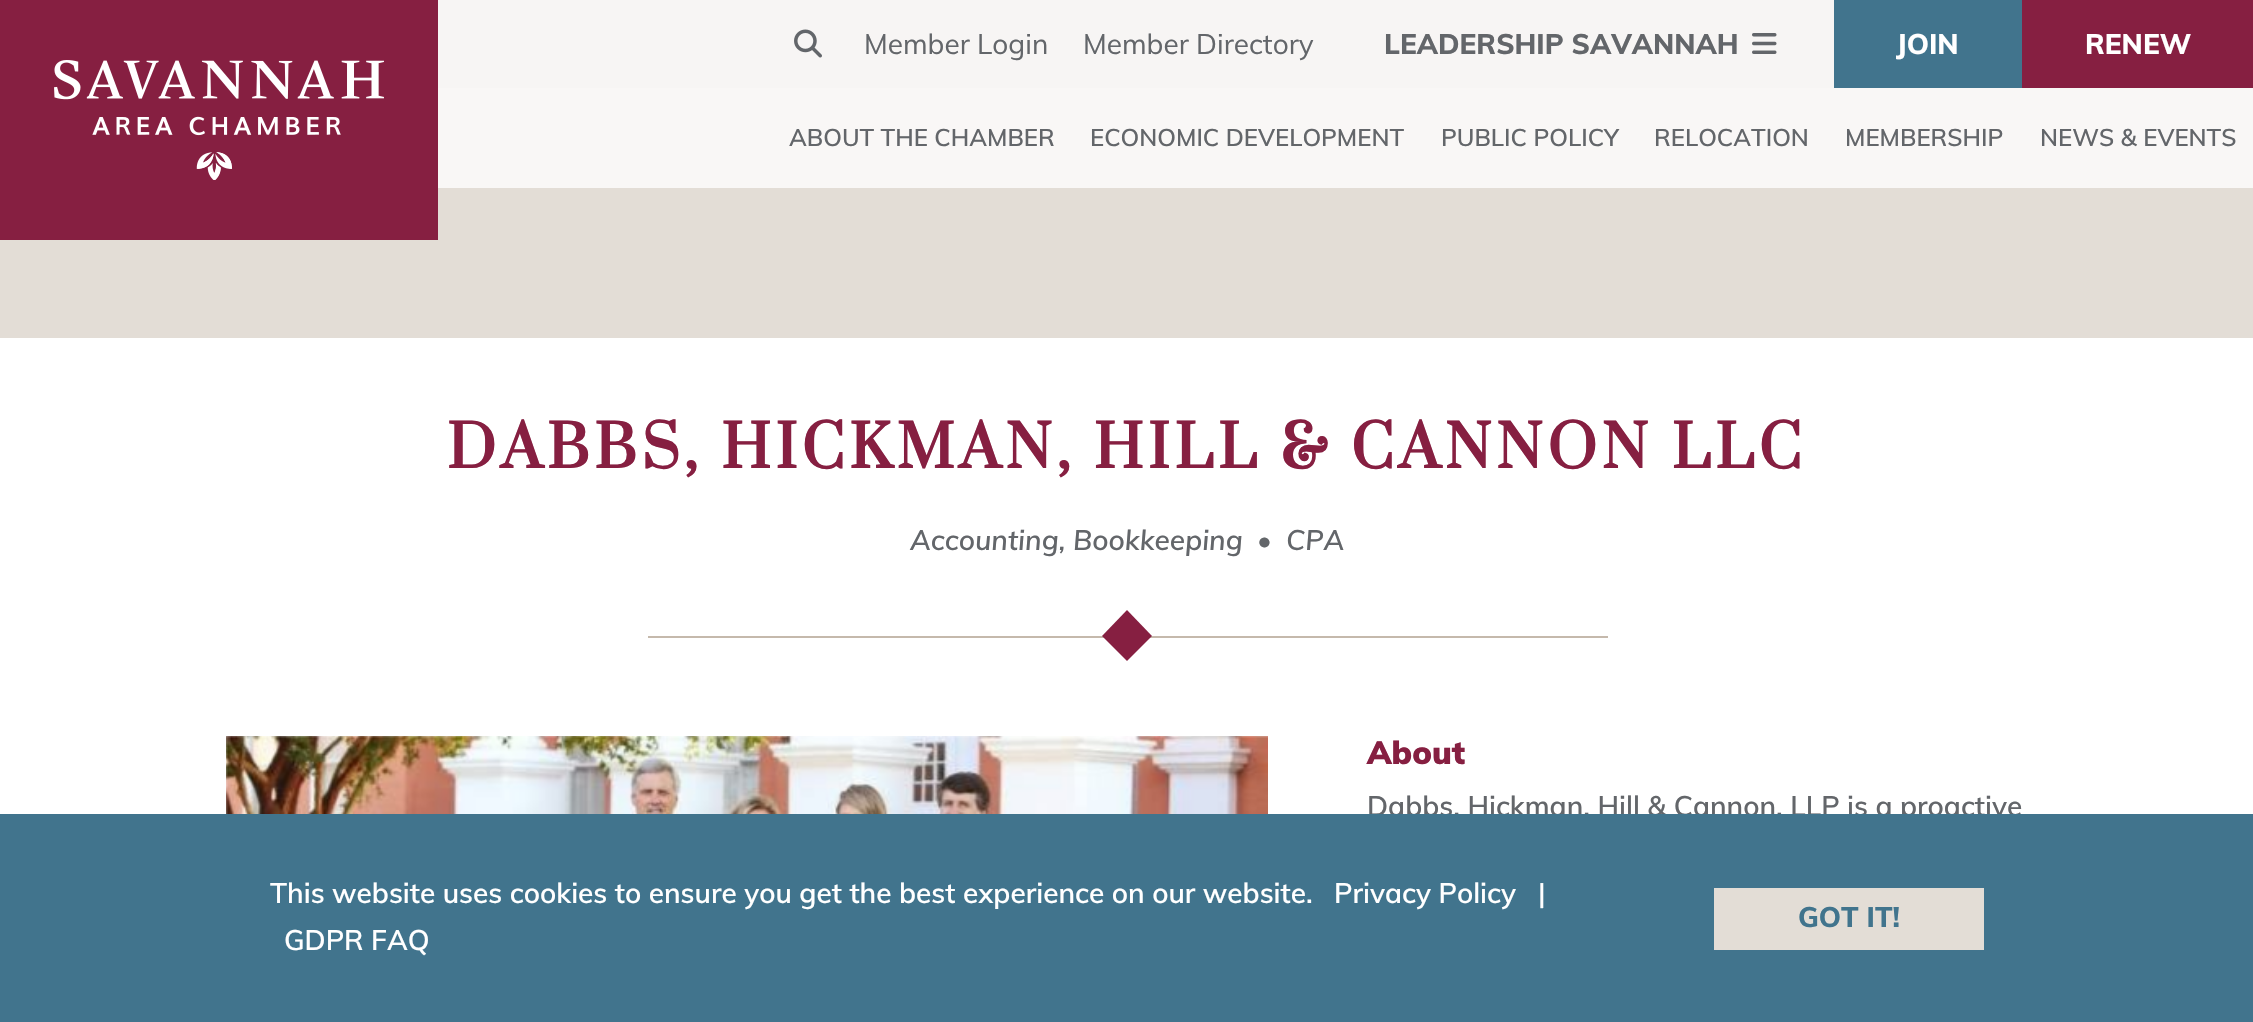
#include "include/core/SkBlurTypes.h"
#include "include/core/SkCanvas.h"
#include "include/core/SkData.h"
#include "include/core/SkFont.h"
#include "include/core/SkFontMgr.h"
#include "include/core/SkImage.h"
#include "include/core/SkMaskFilter.h"
#include "include/core/SkPaint.h"
#include "include/core/SkPathBuilder.h"
#include "include/core/SkTextBlob.h"
#include "include/effects/SkDashPathEffect.h"
#include "include/effects/SkGradientShader.h"
#include "include/utils/SkParsePath.h"

extern sk_sp<SkFontMgr> fontMgr;

void draw(SkCanvas* canvas) {
  SkPaint p;
  p.setAntiAlias(true);
  auto spacedText = [&](const char* s, float x, float y, const SkFont& font, const SkPaint& ink, float letter, float word) {
    std::vector<SkGlyphID> glyphs(font.countText(s, strlen(s), SkTextEncoding::kUTF8));
    std::vector<float> xs(glyphs.size());
    font.textToGlyphs(s, strlen(s), SkTextEncoding::kUTF8, glyphs);
    font.getXPos(glyphs, xs, x);
    float extra = 0;
    for (size_t i = 0; i < glyphs.size(); i++) {
      xs[i] += extra;
      extra += letter + word * (glyphs[i] == font.unicharToGlyph(' '));
    }
    canvas->drawTextBlob(SkTextBlob::MakeFromPosHGlyphs(glyphs, xs, y, font), 0, 0, ink);
  };
  canvas->clear(SK_ColorWHITE);
  p.setColor(SkColorSetRGB(247, 245, 244));
  canvas->drawRect(SkRect::MakeLTRB(438, 0, 1834, 88), p);
  p.setColor(SkColorSetRGB(227, 221, 214));
  canvas->drawRect(SkRect::MakeLTRB(0, 188, 2253, 338), p);
  p.setColor(SkColorSetRGB(134, 31, 65));
  canvas->drawRect(SkRect::MakeLTRB(0, 0, 438, 240), p);
  canvas->drawImageRect(SkImages::DeferredFromEncodedData(SkData::MakeFromFileName("images/1.png")), SkRect::MakeLTRB(54, 60, 384, 180), SkSamplingOptions());
  canvas->drawImageRect(SkImages::DeferredFromEncodedData(SkData::MakeFromFileName("images/2.png")), SkRect::MakeLTRB(794, 29, 822, 58), SkSamplingOptions());
  canvas->drawImageRect(SkImages::DeferredFromEncodedData(SkData::MakeFromFileName("images/3.png")), SkRect::MakeLTRB(1752, 33, 1777, 54), SkSamplingOptions());
  p.setColor(SkColorSetRGB(65, 116, 141));
  canvas->drawRect(SkRect::MakeLTRB(1834, 0, 2022, 88), p);
  p.setColor(SkColorSetRGB(134, 31, 65));
  canvas->drawRect(SkRect::MakeLTRB(2022, 0, 2253, 88), p);
  p.setColor(SkColorSetRGB(249, 247, 246));
  canvas->drawRect(SkRect::MakeLTRB(438, 88, 2253, 188), p);
  p.setColor(SkColorSetRGB(197, 185, 172));
  canvas->drawRect(SkRect::MakeLTRB(648, 636, 1608, 638), p);
  p.setColor(SkColorSetRGB(134, 31, 65));
  canvas->drawPath(SkPathBuilder().moveTo(1102, 636).lineTo(1127, 610).lineTo(1152, 636).lineTo(1127, 661).close().detach(), p);
  canvas->drawImageRect(SkImages::DeferredFromEncodedData(SkData::MakeFromFileName("images/4.png")), SkRect::MakeLTRB(226, 736, 1268, 814), SkSamplingOptions());
  SkFont font1(fontMgr->matchFamilyStyle("Muli", SkFontStyle::Normal()), 28);
  font1.setSubpixel(true);
  p.setColor(SkColorSetRGB(99, 102, 106));
  canvas->drawString("Member Login", 864, 54, font1, p);
  canvas->drawString("Member Directory", 1083, 54, font1, p);
  SkFont font2(fontMgr->matchFamilyStyle("Muli", SkFontStyle(800, SkFontStyle::kNormal_Width, SkFontStyle::kUpright_Slant)), 28);
  font2.setSubpixel(true);
  canvas->drawString("LEADERSHIP SAVANNAH", 1384, 54, font2, p);
  p.setColor(SK_ColorWHITE);
  canvas->drawString("JOIN", 1896, 54, font2, p);
  canvas->drawString("RENEW", 2085, 54, font2, p);
  SkFont font3(fontMgr->matchFamilyStyle("Muli", SkFontStyle(600, SkFontStyle::kNormal_Width, SkFontStyle::kUpright_Slant)), 24);
  font3.setSubpixel(true);
  p.setColor(SkColorSetRGB(99, 102, 106));
  canvas->drawString("ABOUT THE CHAMBER", 789, 146, font3, p);
  canvas->drawString("ECONOMIC DEVELOPMENT", 1090, 146, font3, p);
  canvas->drawString("PUBLIC POLICY", 1441, 146, font3, p);
  canvas->drawString("RELOCATION", 1654, 146, font3, p);
  canvas->drawString("MEMBERSHIP", 1845, 146, font3, p);
  canvas->drawString("NEWS & EVENTS", 2040, 146, font3, p);
  SkFont font4(fontMgr->matchFamilyStyle("Suranna", SkFontStyle::Bold()), 72);
  font4.setSubpixel(true);
  p.setColor(SkColorSetRGB(134, 31, 65));
  spacedText("DABBS, HICKMAN, HILL & CANNON LLC", 447, 468, font4, p, 5.4f, 0);
  SkFont font5(fontMgr->matchFamilyStyle("Muli", SkFontStyle(600, SkFontStyle::kNormal_Width, SkFontStyle::kItalic_Slant)), 28);
  font5.setSubpixel(true);
  p.setColor(SkColorSetRGB(99, 102, 106));
  canvas->drawString("Accounting, Bookkeeping", 910, 550, font5, p);
  canvas->drawString("•", 1257, 550, font5, p);
  canvas->drawString("CPA", 1286, 550, font5, p);
  SkFont font6(fontMgr->matchFamilyStyle("Muli", SkFontStyle(900, SkFontStyle::kNormal_Width, SkFontStyle::kUpright_Slant)), 32);
  font6.setSubpixel(true);
  p.setColor(SkColorSetRGB(134, 31, 65));
  canvas->drawString("About", 1367, 764, font6, p);
  SkFont font7(fontMgr->matchFamilyStyle("Muli", SkFontStyle(600, SkFontStyle::kNormal_Width, SkFontStyle::kUpright_Slant)), 28);
  font7.setSubpixel(true);
  p.setColor(SkColorSetRGB(99, 102, 106));
  canvas->drawString("Dabbs, Hickman, Hill & Cannon, LLP is a proactive", 1367, 816, font7, p);
  p.setColor(SkColorSetRGB(65, 116, 141));
  canvas->drawRect(SkRect::MakeLTRB(0, 814, 2253, 1022), p);
  p.setColor(SK_ColorWHITE);
  canvas->drawString("This website uses cookies to ensure you get the best experience on our website.", 270, 903, font7, p);
  canvas->drawString("Privacy Policy", 1334, 903, font7, p);
  canvas->drawString("|", 1538, 903, font7, p);
  canvas->drawString("GDPR FAQ", 284, 950, font7, p);
  p.setColor(SkColorSetRGB(227, 221, 214));
  canvas->drawRect(SkRect::MakeLTRB(1714, 888, 1984, 950), p);
  p.setColor(SkColorSetRGB(65, 116, 141));
  canvas->drawString("GOT IT!", 1798, 927, font2, p);
}
